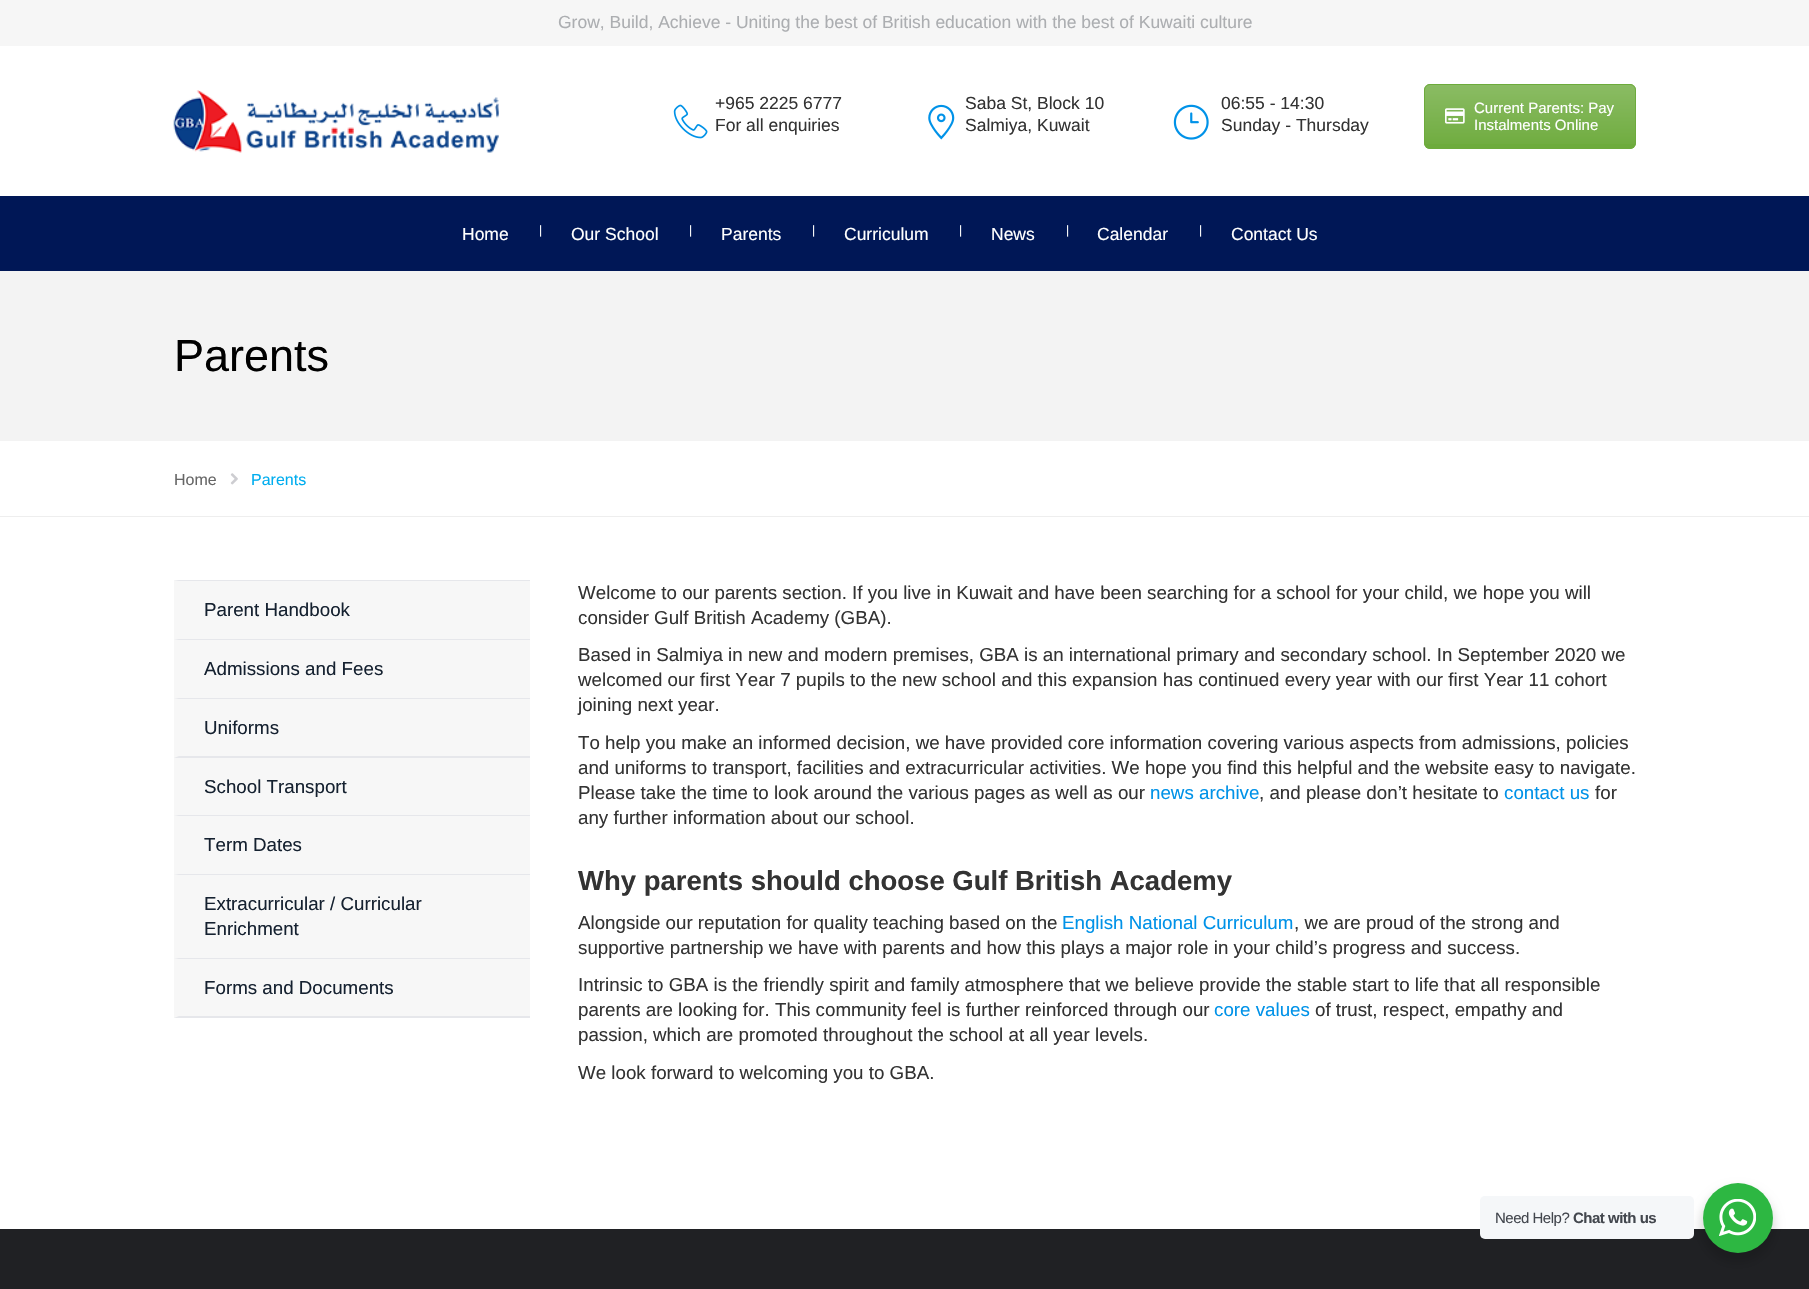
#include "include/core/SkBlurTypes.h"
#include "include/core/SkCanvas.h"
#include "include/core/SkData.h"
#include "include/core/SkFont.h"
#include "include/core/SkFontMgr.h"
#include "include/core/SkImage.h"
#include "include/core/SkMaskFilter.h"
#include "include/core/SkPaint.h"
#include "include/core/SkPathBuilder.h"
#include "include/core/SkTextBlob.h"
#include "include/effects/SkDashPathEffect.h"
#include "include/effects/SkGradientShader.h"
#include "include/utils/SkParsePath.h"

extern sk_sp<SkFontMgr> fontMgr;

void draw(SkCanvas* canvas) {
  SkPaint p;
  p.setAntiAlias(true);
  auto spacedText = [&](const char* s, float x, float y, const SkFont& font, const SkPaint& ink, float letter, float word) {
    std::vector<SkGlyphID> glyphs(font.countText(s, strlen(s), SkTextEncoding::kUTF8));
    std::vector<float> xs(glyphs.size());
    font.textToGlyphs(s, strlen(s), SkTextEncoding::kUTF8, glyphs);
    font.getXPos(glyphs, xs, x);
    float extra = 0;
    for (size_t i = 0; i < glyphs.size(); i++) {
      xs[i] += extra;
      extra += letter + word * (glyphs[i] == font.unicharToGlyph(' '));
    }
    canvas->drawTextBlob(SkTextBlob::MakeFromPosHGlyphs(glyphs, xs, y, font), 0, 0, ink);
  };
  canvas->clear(SK_ColorWHITE);
  p.setColor(SkColorSetRGB(246, 246, 246));
  canvas->drawRect(SkRect::MakeLTRB(0, 0, 1809, 46), p);
  canvas->drawImageRect(SkImages::DeferredFromEncodedData(SkData::MakeFromFileName("images/1.png")), SkRect::MakeLTRB(173, 90, 499, 153), SkSamplingOptions());
  canvas->drawImageRect(SkImages::DeferredFromEncodedData(SkData::MakeFromFileName("images/2.png")), SkRect::MakeLTRB(673, 104, 708, 139), SkSamplingOptions());
  canvas->drawImageRect(SkImages::DeferredFromEncodedData(SkData::MakeFromFileName("images/3.png")), SkRect::MakeLTRB(928, 104, 955, 140), SkSamplingOptions());
  canvas->drawImageRect(SkImages::DeferredFromEncodedData(SkData::MakeFromFileName("images/4.png")), SkRect::MakeLTRB(1173, 104, 1209, 140), SkSamplingOptions());
  p.setColor(SkColorSetRGB(109, 171, 60));
  canvas->drawRoundRect(SkRect::MakeLTRB(1424, 84, 1636, 149), 6, 6, p);
  canvas->save();
  canvas->clipPath(SkPathBuilder().moveTo(1430, 84).lineTo(1630, 84).cubicTo(1633.5f, 84, 1636, 86.5f, 1636, 90).lineTo(1636, 143).cubicTo(1636, 146.5f, 1633.5f, 149, 1630, 149).lineTo(1430, 149).cubicTo(1426.5f, 149, 1424, 146.5f, 1424, 143).lineTo(1424, 90).cubicTo(1424, 86.5f, 1426.5f, 84, 1430, 84).close().detach(), true);
  {
    const SkColor colors[] = {SkColorSetARGB(51, 255, 255, 255), SkColorSetARGB(3, 255, 255, 255)};
    const float stops[] = {0, 1};
    const SkPoint ends[] = {{1530, 85}, {1530, 148}};
    p.setShader(SkGradientShader::MakeLinear(ends, colors, stops, 2, SkTileMode::kClamp));
    p.setAlpha(255);
  }
  canvas->drawRect(SkRect::MakeLTRB(1424, 85, 1636, 144), p);
  canvas->restore();
  p.setStyle(SkPaint::kStroke_Style);
  p.setStrokeWidth(1);
  p.setShader(nullptr);
  p.setColor(SkColorSetRGB(109, 171, 60));
  canvas->drawRoundRect(SkRect::MakeLTRB(1424.5f, 84.5f, 1635.5f, 148.5f), 5.5f, 5.5f, p);
  canvas->drawImageRect(SkImages::DeferredFromEncodedData(SkData::MakeFromFileName("images/5.png")), SkRect::MakeLTRB(1445, 108, 1465, 124), SkSamplingOptions());
  p.setStyle(SkPaint::kFill_Style);
  p.setColor(SkColorSetRGB(0, 23, 86));
  canvas->drawRect(SkRect::MakeLTRB(0, 196, 1809, 271), p);
  p.setColor(SkColorSetRGB(243, 243, 243));
  canvas->drawRect(SkRect::MakeLTRB(0, 271, 1809, 441), p);
  p.setColor(SkColorSetRGB(238, 238, 238));
  canvas->drawRect(SkRect::MakeLTRB(0, 516, 1809, 517), p);
  canvas->drawImageRect(SkImages::DeferredFromEncodedData(SkData::MakeFromFileName("images/6.png")), SkRect::MakeLTRB(230, 473, 238, 485), SkSamplingOptions());
  p.setColor(SkColorSetRGB(247, 247, 247));
  canvas->drawRect(SkRect::MakeLTRB(174, 580, 530, 1018), p);
  p.setColor(SkColorSetRGB(230, 231, 235));
  canvas->drawPath(SkPathBuilder().moveTo(174, 580).lineTo(530, 580).lineTo(530, 581).lineTo(179, 581).close().detach(), p);
  canvas->drawPath(SkPathBuilder().moveTo(530, 640).lineTo(174, 640).lineTo(179, 639).lineTo(530, 639).close().detach(), p);
  canvas->drawPath(SkPathBuilder().moveTo(530, 699).lineTo(174, 699).lineTo(179, 698).lineTo(530, 698).close().detach(), p);
  canvas->drawPath(SkPathBuilder().moveTo(530, 758).lineTo(174, 758).lineTo(179, 756).lineTo(530, 756).close().detach(), p);
  canvas->drawPath(SkPathBuilder().moveTo(530, 816).lineTo(174, 816).lineTo(179, 815).lineTo(530, 815).close().detach(), p);
  canvas->drawPath(SkPathBuilder().moveTo(530, 875).lineTo(174, 875).lineTo(179, 874).lineTo(530, 874).close().detach(), p);
  canvas->drawPath(SkPathBuilder().moveTo(530, 959).lineTo(174, 959).lineTo(179, 958).lineTo(530, 958).close().detach(), p);
  canvas->drawPath(SkPathBuilder().moveTo(530, 1018).lineTo(174, 1018).lineTo(179, 1016).lineTo(530, 1016).close().detach(), p);
  p.setColor(SkColorSetRGB(32, 33, 36));
  canvas->drawRect(SkRect::MakeLTRB(0, 1229, 1809, 1289), p);
  p.setColor(SkColorSetARGB(36, 0, 0, 0));
  p.setMaskFilter(SkMaskFilter::MakeBlur(kNormal_SkBlurStyle, 5));
  canvas->drawRoundRect(SkRect::MakeLTRB(1700, 1188, 1775, 1263), 37.5f, 37.5f, p);
  p.setMaskFilter(nullptr);
  p.setColor(SkColorSetRGB(245, 247, 249));
  canvas->drawRoundRect(SkRect::MakeLTRB(1480, 1196, 1694, 1239), 5, 5, p);
  p.setColor(SkColorSetRGB(45, 183, 66));
  canvas->drawCircle(1738, 1218, 35, p);
  canvas->drawImageRect(SkImages::DeferredFromEncodedData(SkData::MakeFromFileName("images/7.png")), SkRect::MakeLTRB(1719, 1199, 1756, 1236), SkSamplingOptions());
  SkFont font1(fontMgr->matchFamilyStyle("Liberation Sans", SkFontStyle::Normal()), 17.5f);
  font1.setSubpixel(true);
  p.setColor(SkColorSetRGB(172, 174, 177));
  canvas->drawString("Grow, Build, Achieve - Uniting the best of British education with the best of Kuwaiti culture", 558, 28, font1, p);
  p.setColor(SkColorSetRGB(51, 51, 51));
  canvas->drawString("+965 2225 6777", 715, 109, font1, p);
  canvas->drawString("For all enquiries", 715, 131, font1, p);
  canvas->drawString("Saba St, Block 10", 965, 109, font1, p);
  canvas->drawString("Salmiya, Kuwait", 965, 131, font1, p);
  canvas->drawString("06:55 - 14:30", 1221, 109, font1, p);
  canvas->drawString("Sunday - Thursday", 1221, 131, font1, p);
  SkFont font2(fontMgr->matchFamilyStyle("Liberation Sans", SkFontStyle::Normal()), 15);
  font2.setSubpixel(true);
  p.setColor(SK_ColorWHITE);
  canvas->drawString("Current Parents: Pay", 1474, 113, font2, p);
  canvas->drawString("Instalments Online", 1474, 130, font2, p);
  canvas->drawString("Home", 462, 240, font1, p);
  SkFont font3(fontMgr->matchFamilyStyle("Liberation Sans", SkFontStyle::Normal()), 12);
  font3.setSubpixel(true);
  spacedText("|", 539, 234, font3, p, 1, 0);
  canvas->drawString("Our School", 571, 240, font1, p);
  spacedText("|", 689, 234, font3, p, 1, 0);
  canvas->drawString("Parents", 721, 240, font1, p);
  spacedText("|", 812, 234, font3, p, 1, 0);
  canvas->drawString("Curriculum", 844, 240, font1, p);
  spacedText("|", 959, 234, font3, p, 1, 0);
  canvas->drawString("News", 991, 240, font1, p);
  spacedText("|", 1066, 234, font3, p, 1, 0);
  canvas->drawString("Calendar", 1097, 240, font1, p);
  spacedText("|", 1199, 234, font3, p, 1, 0);
  canvas->drawString("Contact Us", 1231, 240, font1, p);
  SkFont font4(fontMgr->matchFamilyStyle("Liberation Sans", SkFontStyle::Normal()), 45);
  font4.setSubpixel(true);
  p.setColor(SK_ColorBLACK);
  canvas->drawString("Parents", 174, 371, font4, p);
  SkFont font5(fontMgr->matchFamilyStyle("Liberation Sans", SkFontStyle::Normal()), 16);
  font5.setSubpixel(true);
  p.setColor(SkColorSetRGB(102, 102, 102));
  canvas->drawString("Home", 174, 485, font5, p);
  p.setColor(SkColorSetRGB(0, 173, 239));
  canvas->drawString("Parents", 251, 485, font5, p);
  SkFont font6(fontMgr->matchFamilyStyle("Liberation Sans", SkFontStyle::Normal()), 18.75f);
  font6.setSubpixel(true);
  p.setColor(SkColorSetRGB(21, 33, 48));
  canvas->drawString("Parent Handbook", 204, 616, font6, p);
  canvas->drawString("Admissions and Fees", 204, 675, font6, p);
  canvas->drawString("Uniforms", 204, 734, font6, p);
  canvas->drawString("School Transport", 204, 793, font6, p);
  canvas->drawString("Term Dates", 204, 851, font6, p);
  canvas->drawString("Extracurricular / Curricular", 204, 910, font6, p);
  canvas->drawString("Enrichment", 204, 935, font6, p);
  canvas->drawString("Forms and Documents", 204, 994, font6, p);
  p.setColor(SkColorSetRGB(51, 51, 51));
  canvas->drawString("Welcome to our parents section. If you live in Kuwait and have been searching for a school for your child, we hope you will", 578, 599, font6, p);
  canvas->drawString("consider Gulf British Academy (GBA).", 578, 624, font6, p);
  canvas->drawString("Based in Salmiya in new and modern premises, GBA is an international primary and secondary school. In September 2020 we", 578, 661, font6, p);
  canvas->drawString("welcomed our first Year 7 pupils to the new school and this expansion has continued every year with our first Year 11 cohort", 578, 686, font6, p);
  canvas->drawString("joining next year.", 578, 711, font6, p);
  canvas->drawString("To help you make an informed decision, we have provided core information covering various aspects from admissions, policies", 578, 749, font6, p);
  canvas->drawString("and uniforms to transport, facilities and extracurricular activities. We hope you find this helpful and the website easy to navigate.", 578, 774, font6, p);
  canvas->drawString("Please take the time to look around the various pages as well as our", 578, 799, font6, p);
  p.setColor(SkColorSetRGB(0, 146, 232));
  canvas->drawString("news archive", 1150, 799, font6, p);
  p.setColor(SkColorSetRGB(51, 51, 51));
  canvas->drawString(", and please don’t hesitate to", 1259, 799, font6, p);
  p.setColor(SkColorSetRGB(0, 146, 232));
  canvas->drawString("contact us", 1504, 799, font6, p);
  p.setColor(SkColorSetRGB(51, 51, 51));
  canvas->drawString("for", 1595, 799, font6, p);
  canvas->drawString("any further information about our school.", 578, 824, font6, p);
  SkFont font7(fontMgr->matchFamilyStyle("Liberation Sans", SkFontStyle::Bold()), 27.5f);
  font7.setSubpixel(true);
  canvas->drawString("Why parents should choose Gulf British Academy", 578, 890, font7, p);
  canvas->drawString("Alongside our reputation for quality teaching based on the", 578, 929, font6, p);
  p.setColor(SkColorSetRGB(0, 146, 232));
  canvas->drawString("English National Curriculum", 1062, 929, font6, p);
  p.setColor(SkColorSetRGB(51, 51, 51));
  canvas->drawString(", we are proud of the strong and", 1294, 929, font6, p);
  canvas->drawString("supportive partnership we have with parents and how this plays a major role in your child’s progress and success.", 578, 954, font6, p);
  canvas->drawString("Intrinsic to GBA is the friendly spirit and family atmosphere that we believe provide the stable start to life that all responsible", 578, 991, font6, p);
  canvas->drawString("parents are looking for. This community feel is further reinforced through our", 578, 1016, font6, p);
  p.setColor(SkColorSetRGB(0, 146, 232));
  canvas->drawString("core values", 1214, 1016, font6, p);
  p.setColor(SkColorSetRGB(51, 51, 51));
  canvas->drawString("of trust, respect, empathy and", 1315, 1016, font6, p);
  canvas->drawString("passion, which are promoted throughout the school at all year levels.", 578, 1041, font6, p);
  canvas->drawString("We look forward to welcoming you to GBA.", 578, 1079, font6, p);
  p.setColor(SkColorSetRGB(67, 71, 78));
  spacedText("Need Help?", 1495, 1223, font2, p, -0.5f, 0);
  SkFont font8(fontMgr->matchFamilyStyle("Liberation Sans", SkFontStyle::Bold()), 15);
  font8.setSubpixel(true);
  spacedText("Chat with us", 1573, 1223, font8, p, -0.5f, 0);
}
